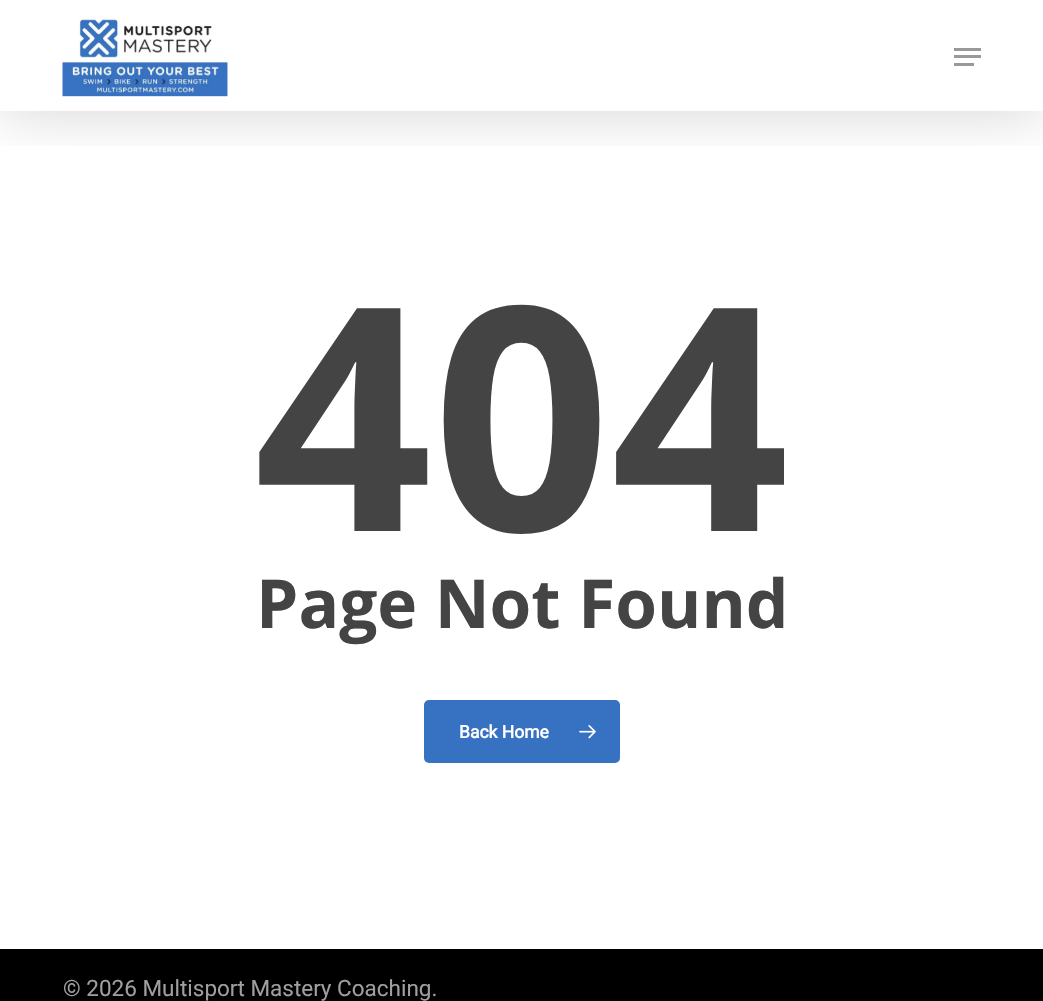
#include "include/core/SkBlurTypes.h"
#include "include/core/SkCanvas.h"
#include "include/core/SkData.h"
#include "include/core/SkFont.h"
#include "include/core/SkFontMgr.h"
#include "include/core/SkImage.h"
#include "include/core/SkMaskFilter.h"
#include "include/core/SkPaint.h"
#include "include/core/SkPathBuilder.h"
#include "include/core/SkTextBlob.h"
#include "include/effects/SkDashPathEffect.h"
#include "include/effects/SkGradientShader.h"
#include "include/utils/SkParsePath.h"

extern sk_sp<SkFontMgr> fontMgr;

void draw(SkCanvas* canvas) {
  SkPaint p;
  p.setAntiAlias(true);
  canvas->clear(SK_ColorWHITE);
  canvas->save();
  canvas->clipRect(SkRect::MakeLTRB(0, 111, 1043, 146));
  p.setColor(SkColorSetARGB(38, 0, 0, 0));
  p.setMaskFilter(SkMaskFilter::MakeBlur(kNormal_SkBlurStyle, 28));
  canvas->drawRect(SkRect::MakeLTRB(0, 4, 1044, 115), p);
  p.setMaskFilter(nullptr);
  canvas->restore();
  canvas->drawImageRect(SkImages::DeferredFromEncodedData(SkData::MakeFromFileName("images/1.png")), SkRect::MakeLTRB(62, 18, 228, 97), SkSamplingOptions());
  p.setColor(SkColorSetRGB(153, 153, 153));
  canvas->drawRect(SkRect::MakeLTRB(954, 48, 981, 51), p);
  canvas->drawRect(SkRect::MakeLTRB(954, 63, 974, 66), p);
  canvas->drawRect(SkRect::MakeLTRB(954, 55, 981, 58), p);
  p.setColor(SkColorSetRGB(55, 113, 194));
  canvas->drawRoundRect(SkRect::MakeLTRB(424, 700, 620, 763), 5, 5, p);
  canvas->drawImageRect(SkImages::DeferredFromEncodedData(SkData::MakeFromFileName("images/2.png")), SkRect::MakeLTRB(579, 725, 596, 739), SkSamplingOptions());
  p.setColor(SK_ColorBLACK);
  canvas->drawRect(SkRect::MakeLTRB(0, 949, 1043, 1001), p);
  SkFont font1(fontMgr->matchFamilyStyle("Open Sans", SkFontStyle::Bold()), 312);
  font1.setSubpixel(true);
  p.setColor(SkColorSetRGB(68, 68, 68));
  canvas->drawString("404", 254, 531, font1, p);
  SkFont font2(fontMgr->matchFamilyStyle("Open Sans", SkFontStyle::Bold()), 67.5f);
  font2.setSubpixel(true);
  canvas->drawString("Page Not Found", 256, 628, font2, p);
  SkFont font3(fontMgr->matchFamilyStyle("Roboto", SkFontStyle::Bold()), 17.5f);
  font3.setSubpixel(true);
  p.setColor(SK_ColorWHITE);
  canvas->drawString("Back Home", 459, 738, font3, p);
  SkFont font4(fontMgr->matchFamilyStyle("Roboto", SkFontStyle::Normal()), 22.5f);
  font4.setSubpixel(true);
  p.setColor(SkColorSetRGB(159, 159, 161));
  canvas->drawString("© 2026 Multisport Mastery Coaching.", 63, 996, font4, p);
}
